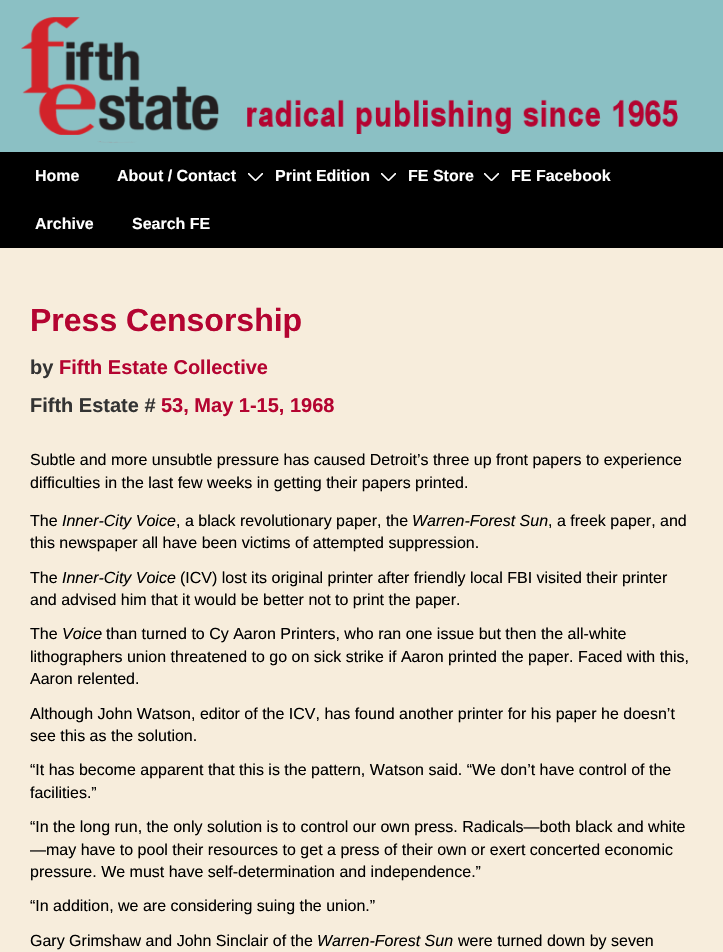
#include "include/core/SkBlurTypes.h"
#include "include/core/SkCanvas.h"
#include "include/core/SkData.h"
#include "include/core/SkFont.h"
#include "include/core/SkFontMgr.h"
#include "include/core/SkImage.h"
#include "include/core/SkMaskFilter.h"
#include "include/core/SkPaint.h"
#include "include/core/SkPathBuilder.h"
#include "include/core/SkTextBlob.h"
#include "include/effects/SkDashPathEffect.h"
#include "include/effects/SkGradientShader.h"
#include "include/utils/SkParsePath.h"

extern sk_sp<SkFontMgr> fontMgr;

void draw(SkCanvas* canvas) {
  SkPaint p;
  p.setAntiAlias(true);
  canvas->clear(SkColorSetRGB(139, 192, 196));
  canvas->drawImageRect(SkImages::DeferredFromEncodedData(SkData::MakeFromFileName("images/1.png")), SkRect::MakeLTRB(21, 17, 678, 143), SkSamplingOptions());
  p.setColor(SK_ColorBLACK);
  canvas->drawRect(SkRect::MakeLTRB(0, 152, 723, 248), p);
  canvas->save();
  canvas->clipRect(SkRect::MakeLTRB(248, 173, 263, 181));
  p.setStyle(SkPaint::kStroke_Style);
  p.setStrokeWidth(1.6f);
  p.setStrokeCap(SkPaint::kRound_Cap);
  p.setColor(SK_ColorWHITE);
  canvas->drawPath(SkPathBuilder().moveTo(248.5f, 173.5f).lineTo(255.5f, 180.5f).lineTo(262.5f, 173.5f).detach(), p);
  canvas->restore();
  canvas->save();
  canvas->clipRect(SkRect::MakeLTRB(381, 173, 396, 181));
  canvas->drawPath(SkPathBuilder().moveTo(381.5f, 173.5f).lineTo(388.5f, 180.5f).lineTo(395.5f, 173.5f).detach(), p);
  canvas->restore();
  canvas->save();
  canvas->clipRect(SkRect::MakeLTRB(484, 173, 499, 181));
  canvas->drawPath(SkPathBuilder().moveTo(484.5f, 173.5f).lineTo(491.5f, 180.5f).lineTo(498.5f, 173.5f).detach(), p);
  canvas->restore();
  p.setStyle(SkPaint::kFill_Style);
  p.setColor(SkColorSetRGB(247, 237, 220));
  canvas->drawRect(SkRect::MakeLTRB(0, 248, 723, 952), p);
  SkFont font1(fontMgr->matchFamilyStyle("Liberation Sans", SkFontStyle::Bold()), 16);
  font1.setSubpixel(true);
  p.setColor(SK_ColorWHITE);
  canvas->drawString("Home", 35, 181, font1, p);
  canvas->drawString("About / Contact", 117, 181, font1, p);
  canvas->drawString("Print Edition", 275, 181, font1, p);
  canvas->drawString("FE Store", 408, 181, font1, p);
  canvas->drawString("FE Facebook", 511, 181, font1, p);
  canvas->drawString("Archive", 35, 229, font1, p);
  canvas->drawString("Search FE", 132, 229, font1, p);
  SkFont font2(fontMgr->matchFamilyStyle("Liberation Sans", SkFontStyle::Bold()), 32);
  font2.setSubpixel(true);
  p.setColor(SkColorSetRGB(180, 4, 49));
  canvas->drawString("Press Censorship", 30, 331, font2, p);
  SkFont font3(fontMgr->matchFamilyStyle("Liberation Sans", SkFontStyle::Bold()), 20);
  font3.setSubpixel(true);
  p.setColor(SkColorSetRGB(51, 51, 51));
  canvas->drawString("by", 30, 374, font3, p);
  p.setColor(SkColorSetRGB(180, 4, 49));
  canvas->drawString("Fifth Estate Collective", 59, 374, font3, p);
  p.setColor(SkColorSetRGB(51, 51, 51));
  canvas->drawString("Fifth Estate #", 30, 412, font3, p);
  p.setColor(SkColorSetRGB(180, 4, 49));
  canvas->drawString("53, May 1-15, 1968", 161, 412, font3, p);
  SkFont font4(fontMgr->matchFamilyStyle("Liberation Sans", SkFontStyle::Normal()), 16);
  font4.setSubpixel(true);
  p.setColor(SK_ColorBLACK);
  canvas->drawString("Subtle and more unsubtle pressure has caused Detroit’s three up front papers to experience", 30, 465, font4, p);
  canvas->drawString("difficulties in the last few weeks in getting their papers printed.", 30, 488, font4, p);
  canvas->drawString("The", 30, 526, font4, p);
  SkFont font5(fontMgr->matchFamilyStyle("Liberation Sans", SkFontStyle::Italic()), 16);
  font5.setSubpixel(true);
  canvas->drawString("Inner-City Voice", 62, 526, font5, p);
  canvas->drawString(", a black revolutionary paper, the", 176, 526, font4, p);
  canvas->drawString("Warren-Forest Sun", 412, 526, font5, p);
  canvas->drawString(", a freek paper, and", 548, 526, font4, p);
  canvas->drawString("this newspaper all have been victims of attempted suppression.", 30, 548, font4, p);
  canvas->drawString("The", 30, 583, font4, p);
  canvas->drawString("Inner-City Voice", 62, 583, font5, p);
  canvas->drawString("(ICV) lost its original printer after friendly local FBI visited their printer", 180, 583, font4, p);
  canvas->drawString("and advised him that it would be better not to print the paper.", 30, 605, font4, p);
  canvas->drawString("The", 30, 639, font4, p);
  canvas->drawString("Voice", 62, 639, font5, p);
  canvas->drawString("than turned to Cy Aaron Printers, who ran one issue but then the all-white", 106, 639, font4, p);
  canvas->drawString("lithographers union threatened to go on sick strike if Aaron printed the paper. Faced with this,", 30, 662, font4, p);
  canvas->drawString("Aaron relented.", 30, 684, font4, p);
  canvas->drawString("Although John Watson, editor of the ICV, has found another printer for his paper he doesn’t", 30, 719, font4, p);
  canvas->drawString("see this as the solution.", 30, 741, font4, p);
  canvas->drawString("“It has become apparent that this is the pattern, Watson said. “We don’t have control of the", 30, 775, font4, p);
  canvas->drawString("facilities.”", 30, 798, font4, p);
  canvas->drawString("“In the long run, the only solution is to control our own press. Radicals—both black and white", 30, 832, font4, p);
  canvas->drawString("—may have to pool their resources to get a press of their own or exert concerted economic", 30, 855, font4, p);
  canvas->drawString("pressure. We must have self-determination and independence.”", 30, 877, font4, p);
  canvas->drawString("“In addition, we are considering suing the union.”", 30, 911, font4, p);
  canvas->drawString("Gary Grimshaw and John Sinclair of the", 30, 946, font4, p);
  canvas->drawString("Warren-Forest Sun", 317, 946, font5, p);
  canvas->drawString("were turned down by seven", 458, 946, font4, p);
}
